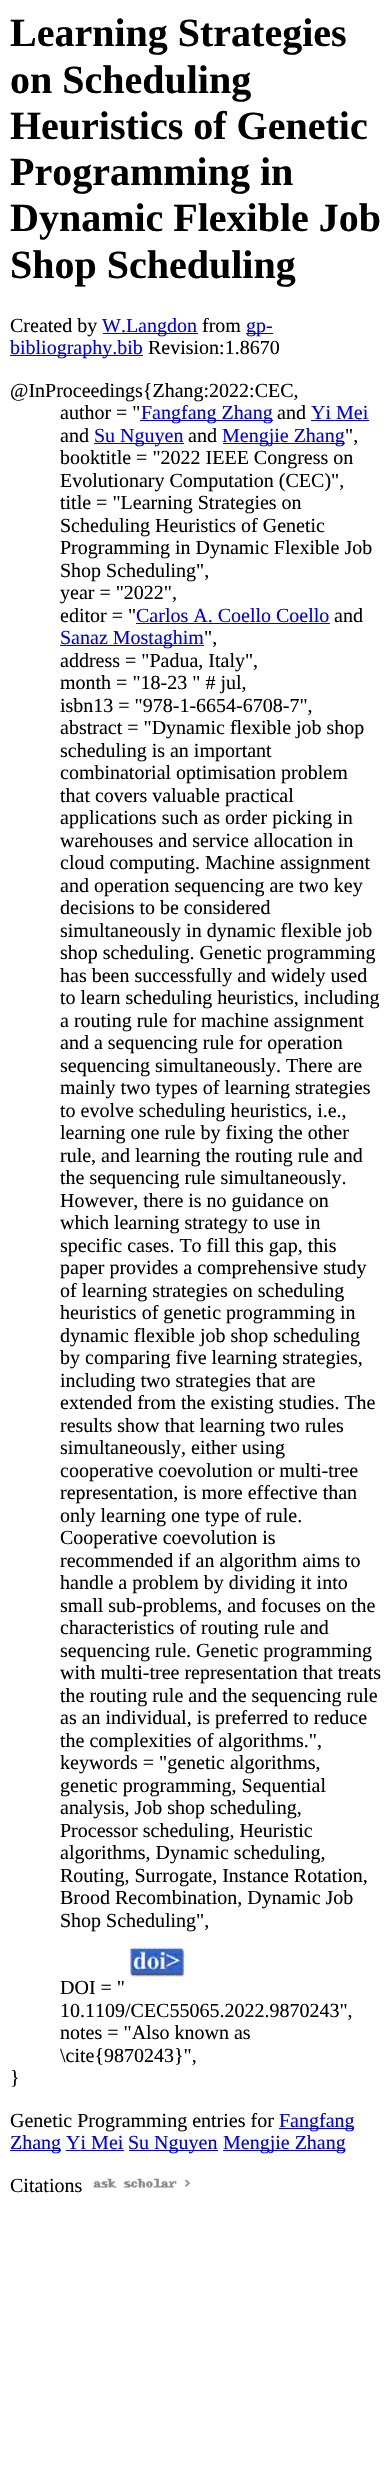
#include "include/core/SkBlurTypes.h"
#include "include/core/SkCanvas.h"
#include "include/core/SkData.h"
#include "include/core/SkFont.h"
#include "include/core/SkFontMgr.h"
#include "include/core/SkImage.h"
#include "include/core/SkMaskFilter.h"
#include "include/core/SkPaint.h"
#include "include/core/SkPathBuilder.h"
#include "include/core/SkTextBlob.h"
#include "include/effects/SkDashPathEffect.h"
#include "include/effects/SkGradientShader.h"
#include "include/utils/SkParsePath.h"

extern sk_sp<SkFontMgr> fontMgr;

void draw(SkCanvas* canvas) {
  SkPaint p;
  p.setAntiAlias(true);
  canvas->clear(SK_ColorWHITE);
  p.setColor(SkColorSetRGB(0, 0, 238));
  canvas->drawRect(SkRect::MakeLTRB(103, 333, 198, 334), p);
  canvas->drawRect(SkRect::MakeLTRB(246, 333, 273, 334), p);
  canvas->drawRect(SkRect::MakeLTRB(10, 355, 143, 356), p);
  canvas->drawRect(SkRect::MakeLTRB(140, 420, 273, 421), p);
  canvas->drawRect(SkRect::MakeLTRB(311, 420, 369, 421), p);
  canvas->drawRect(SkRect::MakeLTRB(94, 443, 184, 444), p);
  canvas->drawRect(SkRect::MakeLTRB(223, 443, 345, 444), p);
  canvas->drawRect(SkRect::MakeLTRB(136, 623, 330, 624), p);
  canvas->drawRect(SkRect::MakeLTRB(60, 645, 204, 646), p);
  canvas->drawImageRect(SkImages::DeferredFromEncodedData(SkData::MakeFromFileName("images/1.png")), SkRect::MakeLTRB(129, 1947, 186, 1977), SkSamplingOptions());
  canvas->drawRect(SkRect::MakeLTRB(279, 2128, 354, 2129), p);
  canvas->drawRect(SkRect::MakeLTRB(10, 2150, 61, 2151), p);
  canvas->drawRect(SkRect::MakeLTRB(129, 2150, 218, 2151), p);
  canvas->drawRect(SkRect::MakeLTRB(223, 2150, 345, 2151), p);
  canvas->drawRect(SkRect::MakeLTRB(66, 2150, 124, 2151), p);
  canvas->drawImageRect(SkImages::DeferredFromEncodedData(SkData::MakeFromFileName("images/2.png")), SkRect::MakeLTRB(93, 2178, 191, 2188), SkSamplingOptions());
  SkFont font1(fontMgr->matchFamilyStyle("Liberation Serif", SkFontStyle::Bold()), 40);
  font1.setSubpixel(true);
  p.setColor(SK_ColorBLACK);
  canvas->drawString("Learning Strategies", 10, 46, font1, p);
  canvas->drawString("on Scheduling", 10, 93, font1, p);
  canvas->drawString("Heuristics of Genetic", 10, 139, font1, p);
  canvas->drawString("Programming in", 10, 185, font1, p);
  canvas->drawString("Dynamic Flexible Job", 10, 231, font1, p);
  canvas->drawString("Shop Scheduling", 10, 278, font1, p);
  SkFont font2(fontMgr->matchFamilyStyle("Liberation Serif", SkFontStyle::Normal()), 20);
  font2.setSubpixel(true);
  canvas->drawString("Created by", 10, 332, font2, p);
  p.setColor(SkColorSetRGB(0, 0, 238));
  canvas->drawString("W.Langdon", 102, 332, font2, p);
  p.setColor(SK_ColorBLACK);
  canvas->drawString("from", 202, 332, font2, p);
  p.setColor(SkColorSetRGB(0, 0, 238));
  canvas->drawString("gp-", 246, 332, font2, p);
  canvas->drawString("bibliography.bib", 10, 354, font2, p);
  p.setColor(SK_ColorBLACK);
  canvas->drawString("Revision:1.8670", 148, 354, font2, p);
  canvas->drawString("@InProceedings{Zhang:2022:CEC,", 10, 397, font2, p);
  canvas->drawString("author = \"", 60, 419, font2, p);
  p.setColor(SkColorSetRGB(0, 0, 238));
  canvas->drawString("Fangfang Zhang", 141, 419, font2, p);
  p.setColor(SK_ColorBLACK);
  canvas->drawString("and", 277, 419, font2, p);
  p.setColor(SkColorSetRGB(0, 0, 238));
  canvas->drawString("Yi Mei", 311, 419, font2, p);
  p.setColor(SK_ColorBLACK);
  canvas->drawString("and", 60, 442, font2, p);
  p.setColor(SkColorSetRGB(0, 0, 238));
  canvas->drawString("Su Nguyen", 94, 442, font2, p);
  p.setColor(SK_ColorBLACK);
  canvas->drawString("and", 188, 442, font2, p);
  p.setColor(SkColorSetRGB(0, 0, 238));
  canvas->drawString("Mengjie Zhang", 222, 442, font2, p);
  p.setColor(SK_ColorBLACK);
  canvas->drawString("\",", 345, 442, font2, p);
  canvas->drawString("booktitle = \"2022 IEEE Congress on", 60, 464, font2, p);
  canvas->drawString("Evolutionary Computation (CEC)\",", 60, 487, font2, p);
  canvas->drawString("title = \"Learning Strategies on", 60, 509, font2, p);
  canvas->drawString("Scheduling Heuristics of Genetic", 60, 532, font2, p);
  canvas->drawString("Programming in Dynamic Flexible Job", 60, 554, font2, p);
  canvas->drawString("Shop Scheduling\",", 60, 577, font2, p);
  canvas->drawString("year = \"2022\",", 60, 599, font2, p);
  canvas->drawString("editor = \"", 60, 622, font2, p);
  p.setColor(SkColorSetRGB(0, 0, 238));
  canvas->drawString("Carlos A. Coello Coello", 136, 622, font2, p);
  p.setColor(SK_ColorBLACK);
  canvas->drawString("and", 334, 622, font2, p);
  p.setColor(SkColorSetRGB(0, 0, 238));
  canvas->drawString("Sanaz Mostaghim", 60, 644, font2, p);
  p.setColor(SK_ColorBLACK);
  canvas->drawString("\",", 204, 644, font2, p);
  canvas->drawString("address = \"Padua, Italy\",", 60, 667, font2, p);
  canvas->drawString("month = \"18-23 \" # jul,", 60, 689, font2, p);
  canvas->drawString("isbn13 = \"978-1-6654-6708-7\",", 60, 712, font2, p);
  canvas->drawString("abstract = \"Dynamic flexible job shop", 60, 734, font2, p);
  canvas->drawString("scheduling is an important", 60, 757, font2, p);
  canvas->drawString("combinatorial optimisation problem", 60, 779, font2, p);
  canvas->drawString("that covers valuable practical", 60, 802, font2, p);
  canvas->drawString("applications such as order picking in", 60, 824, font2, p);
  canvas->drawString("warehouses and service allocation in", 60, 847, font2, p);
  canvas->drawString("cloud computing. Machine assignment", 60, 869, font2, p);
  canvas->drawString("and operation sequencing are two key", 60, 892, font2, p);
  canvas->drawString("decisions to be considered", 60, 914, font2, p);
  canvas->drawString("simultaneously in dynamic flexible job", 60, 937, font2, p);
  canvas->drawString("shop scheduling. Genetic programming", 60, 959, font2, p);
  canvas->drawString("has been successfully and widely used", 60, 982, font2, p);
  canvas->drawString("to learn scheduling heuristics, including", 60, 1004, font2, p);
  canvas->drawString("a routing rule for machine assignment", 60, 1027, font2, p);
  canvas->drawString("and a sequencing rule for operation", 60, 1049, font2, p);
  canvas->drawString("sequencing simultaneously. There are", 60, 1072, font2, p);
  canvas->drawString("mainly two types of learning strategies", 60, 1094, font2, p);
  canvas->drawString("to evolve scheduling heuristics, i.e.,", 60, 1117, font2, p);
  canvas->drawString("learning one rule by fixing the other", 60, 1139, font2, p);
  canvas->drawString("rule, and learning the routing rule and", 60, 1162, font2, p);
  canvas->drawString("the sequencing rule simultaneously.", 60, 1184, font2, p);
  canvas->drawString("However, there is no guidance on", 60, 1207, font2, p);
  canvas->drawString("which learning strategy to use in", 60, 1229, font2, p);
  canvas->drawString("specific cases. To fill this gap, this", 60, 1252, font2, p);
  canvas->drawString("paper provides a comprehensive study", 60, 1274, font2, p);
  canvas->drawString("of learning strategies on scheduling", 60, 1297, font2, p);
  canvas->drawString("heuristics of genetic programming in", 60, 1319, font2, p);
  canvas->drawString("dynamic flexible job shop scheduling", 60, 1342, font2, p);
  canvas->drawString("by comparing five learning strategies,", 60, 1364, font2, p);
  canvas->drawString("including two strategies that are", 60, 1387, font2, p);
  canvas->drawString("extended from the existing studies. The", 60, 1409, font2, p);
  canvas->drawString("results show that learning two rules", 60, 1432, font2, p);
  canvas->drawString("simultaneously, either using", 60, 1454, font2, p);
  canvas->drawString("cooperative coevolution or multi-tree", 60, 1477, font2, p);
  canvas->drawString("representation, is more effective than", 60, 1499, font2, p);
  canvas->drawString("only learning one type of rule.", 60, 1522, font2, p);
  canvas->drawString("Cooperative coevolution is", 60, 1544, font2, p);
  canvas->drawString("recommended if an algorithm aims to", 60, 1567, font2, p);
  canvas->drawString("handle a problem by dividing it into", 60, 1589, font2, p);
  canvas->drawString("small sub-problems, and focuses on the", 60, 1612, font2, p);
  canvas->drawString("characteristics of routing rule and", 60, 1634, font2, p);
  canvas->drawString("sequencing rule. Genetic programming", 60, 1657, font2, p);
  canvas->drawString("with multi-tree representation that treats", 60, 1679, font2, p);
  canvas->drawString("the routing rule and the sequencing rule", 60, 1702, font2, p);
  canvas->drawString("as an individual, is preferred to reduce", 60, 1724, font2, p);
  canvas->drawString("the complexities of algorithms.\",", 60, 1747, font2, p);
  canvas->drawString("keywords = \"genetic algorithms,", 60, 1769, font2, p);
  canvas->drawString("genetic programming, Sequential", 60, 1792, font2, p);
  canvas->drawString("analysis, Job shop scheduling,", 60, 1814, font2, p);
  canvas->drawString("Processor scheduling, Heuristic", 60, 1837, font2, p);
  canvas->drawString("algorithms, Dynamic scheduling,", 60, 1859, font2, p);
  canvas->drawString("Routing, Surrogate, Instance Rotation,", 60, 1882, font2, p);
  canvas->drawString("Brood Recombination, Dynamic Job", 60, 1904, font2, p);
  canvas->drawString("Shop Scheduling\",", 60, 1927, font2, p);
  canvas->drawString("DOI = \"", 60, 1994, font2, p);
  canvas->drawString("10.1109/CEC55065.2022.9870243\",", 60, 2017, font2, p);
  canvas->drawString("notes = \"Also known as", 60, 2039, font2, p);
  canvas->drawString("\\cite{9870243}\",", 60, 2062, font2, p);
  canvas->drawString("}", 10, 2084, font2, p);
  canvas->drawString("Genetic Programming entries for", 10, 2127, font2, p);
  p.setColor(SkColorSetRGB(0, 0, 238));
  canvas->drawString("Fangfang", 279, 2127, font2, p);
  canvas->drawString("Zhang Yi Mei", 10, 2149, font2, p);
  canvas->drawString("Su Nguyen", 128, 2149, font2, p);
  canvas->drawString("Mengjie Zhang", 223, 2149, font2, p);
  p.setColor(SK_ColorBLACK);
  canvas->drawString("Citations", 10, 2192, font2, p);
}
